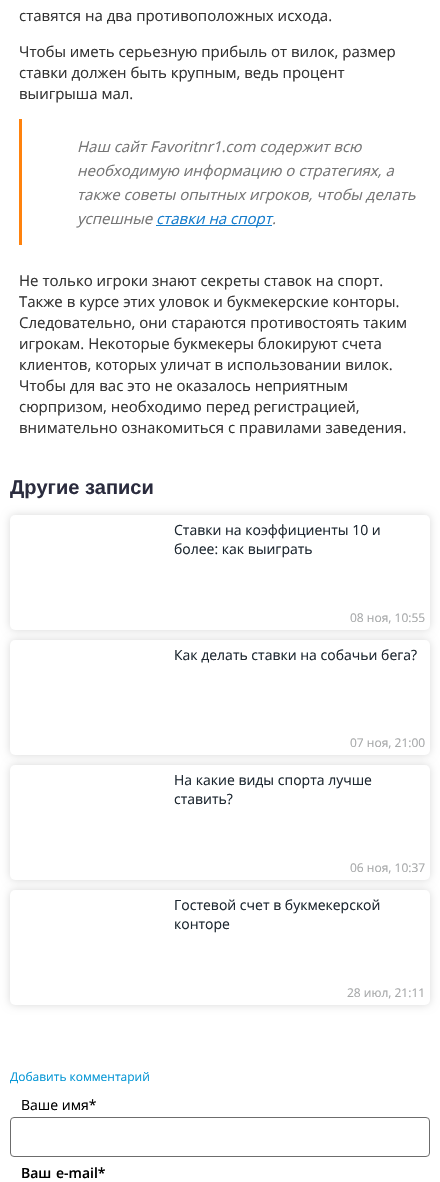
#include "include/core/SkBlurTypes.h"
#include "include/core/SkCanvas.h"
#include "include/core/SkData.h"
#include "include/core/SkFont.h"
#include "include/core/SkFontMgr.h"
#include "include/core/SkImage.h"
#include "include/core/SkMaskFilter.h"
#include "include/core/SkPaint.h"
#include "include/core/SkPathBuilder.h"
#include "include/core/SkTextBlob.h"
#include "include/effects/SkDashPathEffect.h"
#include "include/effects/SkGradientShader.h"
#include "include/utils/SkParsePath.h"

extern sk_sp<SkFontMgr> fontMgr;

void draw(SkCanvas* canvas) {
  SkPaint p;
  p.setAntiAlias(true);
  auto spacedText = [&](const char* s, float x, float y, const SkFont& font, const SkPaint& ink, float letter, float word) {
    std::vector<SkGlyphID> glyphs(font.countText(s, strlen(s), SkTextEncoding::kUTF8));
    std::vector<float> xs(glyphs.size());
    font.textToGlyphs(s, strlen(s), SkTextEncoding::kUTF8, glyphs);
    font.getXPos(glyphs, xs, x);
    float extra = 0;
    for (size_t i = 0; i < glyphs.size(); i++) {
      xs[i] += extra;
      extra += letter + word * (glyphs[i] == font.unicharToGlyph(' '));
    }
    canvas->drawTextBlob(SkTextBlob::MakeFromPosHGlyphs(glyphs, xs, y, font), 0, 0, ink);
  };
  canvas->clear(SK_ColorWHITE);
  p.setColor(SkColorSetRGB(255, 130, 13));
  canvas->drawRect(SkRect::MakeLTRB(19, 119, 22, 245), p);
  p.setColor(SkColorSetRGB(22, 125, 204));
  canvas->drawRect(SkRect::MakeLTRB(156, 225, 272, 226), p);
  p.setColor(SkColorSetARGB(38, 0, 0, 0));
  p.setMaskFilter(SkMaskFilter::MakeBlur(kNormal_SkBlurStyle, 4.5f));
  canvas->drawRoundRect(SkRect::MakeLTRB(10, 515, 430, 630), 5, 5, p);
  p.setMaskFilter(nullptr);
  p.setColor(SK_ColorWHITE);
  canvas->drawRoundRect(SkRect::MakeLTRB(10, 515, 430, 630), 5, 5, p);
  p.setColor(SkColorSetARGB(38, 0, 0, 0));
  p.setMaskFilter(SkMaskFilter::MakeBlur(kNormal_SkBlurStyle, 4.5f));
  canvas->drawRoundRect(SkRect::MakeLTRB(10, 640, 430, 755), 5, 5, p);
  p.setMaskFilter(nullptr);
  p.setColor(SK_ColorWHITE);
  canvas->drawRoundRect(SkRect::MakeLTRB(10, 640, 430, 755), 5, 5, p);
  p.setColor(SkColorSetARGB(38, 0, 0, 0));
  p.setMaskFilter(SkMaskFilter::MakeBlur(kNormal_SkBlurStyle, 4.5f));
  canvas->drawRoundRect(SkRect::MakeLTRB(10, 765, 430, 880), 5, 5, p);
  p.setMaskFilter(nullptr);
  p.setColor(SK_ColorWHITE);
  canvas->drawRoundRect(SkRect::MakeLTRB(10, 765, 430, 880), 5, 5, p);
  p.setColor(SkColorSetARGB(38, 0, 0, 0));
  p.setMaskFilter(SkMaskFilter::MakeBlur(kNormal_SkBlurStyle, 4.5f));
  canvas->drawRoundRect(SkRect::MakeLTRB(10, 890, 430, 1005), 5, 5, p);
  p.setMaskFilter(nullptr);
  p.setColor(SK_ColorWHITE);
  canvas->drawRoundRect(SkRect::MakeLTRB(10, 890, 430, 1005), 5, 5, p);
  p.setStyle(SkPaint::kStroke_Style);
  p.setStrokeWidth(1);
  p.setColor(SkColorSetRGB(108, 108, 108));
  canvas->drawRoundRect(SkRect::MakeLTRB(10.5f, 1117.5f, 429.5f, 1156.5f), 3.5f, 3.5f, p);
  SkFont font1(fontMgr->matchFamilyStyle("Open Sans", SkFontStyle::Normal()), 15);
  font1.setSubpixel(true);
  p.setStyle(SkPaint::kFill_Style);
  p.setColor(SkColorSetRGB(51, 51, 51));
  canvas->drawString("ставятся на два противоположных исхода.", 19, 21, font1, p);
  canvas->drawString("Чтобы иметь серьезную прибыль от вилок, размер", 19, 57, font1, p);
  canvas->drawString("ставки должен быть крупным, ведь процент", 19, 78, font1, p);
  canvas->drawString("выигрыша мал.", 19, 99, font1, p);
  SkFont font2(fontMgr->matchFamilyStyle("Open Sans", SkFontStyle::Italic()), 15);
  font2.setSubpixel(true);
  p.setColor(SkColorSetRGB(117, 117, 117));
  canvas->drawString("Наш сайт Favoritnr1.com содержит всю", 77, 152, font2, p);
  canvas->drawString("необходимую информацию о стратегиях, а", 77, 176, font2, p);
  canvas->drawString("также советы опытных игроков, чтобы делать", 77, 200, font2, p);
  canvas->drawString("успешные", 77, 224, font2, p);
  p.setColor(SkColorSetRGB(22, 125, 204));
  canvas->drawString("ставки на спорт", 156, 224, font2, p);
  p.setColor(SkColorSetRGB(117, 117, 117));
  canvas->drawString(".", 272, 224, font2, p);
  p.setColor(SkColorSetRGB(51, 51, 51));
  canvas->drawString("Не только игроки знают секреты ставок на спорт.", 19, 286, font1, p);
  canvas->drawString("Также в курсе этих уловок и букмекерские конторы.", 19, 307, font1, p);
  canvas->drawString("Следовательно, они стараются противостоять таким", 19, 328, font1, p);
  canvas->drawString("игрокам. Некоторые букмекеры блокируют счета", 19, 349, font1, p);
  canvas->drawString("клиентов, которых уличат в использовании вилок.", 19, 370, font1, p);
  canvas->drawString("Чтобы для вас это не оказалось неприятным", 19, 391, font1, p);
  canvas->drawString("сюрпризом, необходимо перед регистрацией,", 19, 412, font1, p);
  canvas->drawString("внимательно ознакомиться с правилами заведения.", 19, 433, font1, p);
  SkFont font3(fontMgr->matchFamilyStyle("Liberation Sans", SkFontStyle::Bold()), 20);
  font3.setSubpixel(true);
  p.setColor(SkColorSetRGB(43, 44, 62));
  canvas->drawString("Другие записи", 10, 494, font3, p);
  SkFont font4(fontMgr->matchFamilyStyle("Open Sans", SkFontStyle::Normal()), 14);
  font4.setSubpixel(true);
  p.setColor(SkColorSetRGB(29, 39, 48));
  canvas->drawString("Ставки на коэффициенты 10 и", 174, 535, font4, p);
  canvas->drawString("более: как выиграть", 174, 554, font4, p);
  SkFont font5(fontMgr->matchFamilyStyle("Open Sans", SkFontStyle::Normal()), 12);
  font5.setSubpixel(true);
  p.setColor(SkColorSetRGB(166, 168, 169));
  canvas->drawString("08 ноя, 10:55", 350, 622, font5, p);
  p.setColor(SkColorSetRGB(29, 39, 48));
  canvas->drawString("Как делать ставки на собачьи бега?", 174, 660, font4, p);
  p.setColor(SkColorSetRGB(166, 168, 169));
  canvas->drawString("07 ноя, 21:00", 350, 747, font5, p);
  p.setColor(SkColorSetRGB(29, 39, 48));
  canvas->drawString("На какие виды спорта лучше", 174, 785, font4, p);
  canvas->drawString("ставить?", 174, 804, font4, p);
  p.setColor(SkColorSetRGB(166, 168, 169));
  canvas->drawString("06 ноя, 10:37", 350, 872, font5, p);
  p.setColor(SkColorSetRGB(29, 39, 48));
  canvas->drawString("Гостевой счет в букмекерской", 174, 910, font4, p);
  canvas->drawString("конторе", 174, 929, font4, p);
  p.setColor(SkColorSetRGB(166, 168, 169));
  canvas->drawString("28 июл, 21:11", 347, 997, font5, p);
  p.setColor(SkColorSetRGB(5, 150, 213));
  canvas->drawString("Добавить комментарий", 10, 1081, font5, p);
  p.setColor(SK_ColorBLACK);
  canvas->drawString("Ваше имя*", 21, 1110, font4, p);
  SkFont font6(fontMgr->matchFamilyStyle("Open Sans", SkFontStyle(600, SkFontStyle::kNormal_Width, SkFontStyle::kUpright_Slant)), 14);
  font6.setSubpixel(true);
  spacedText("Ваш e-mail*", 21, 1178, font6, p, 0, 1);
}
